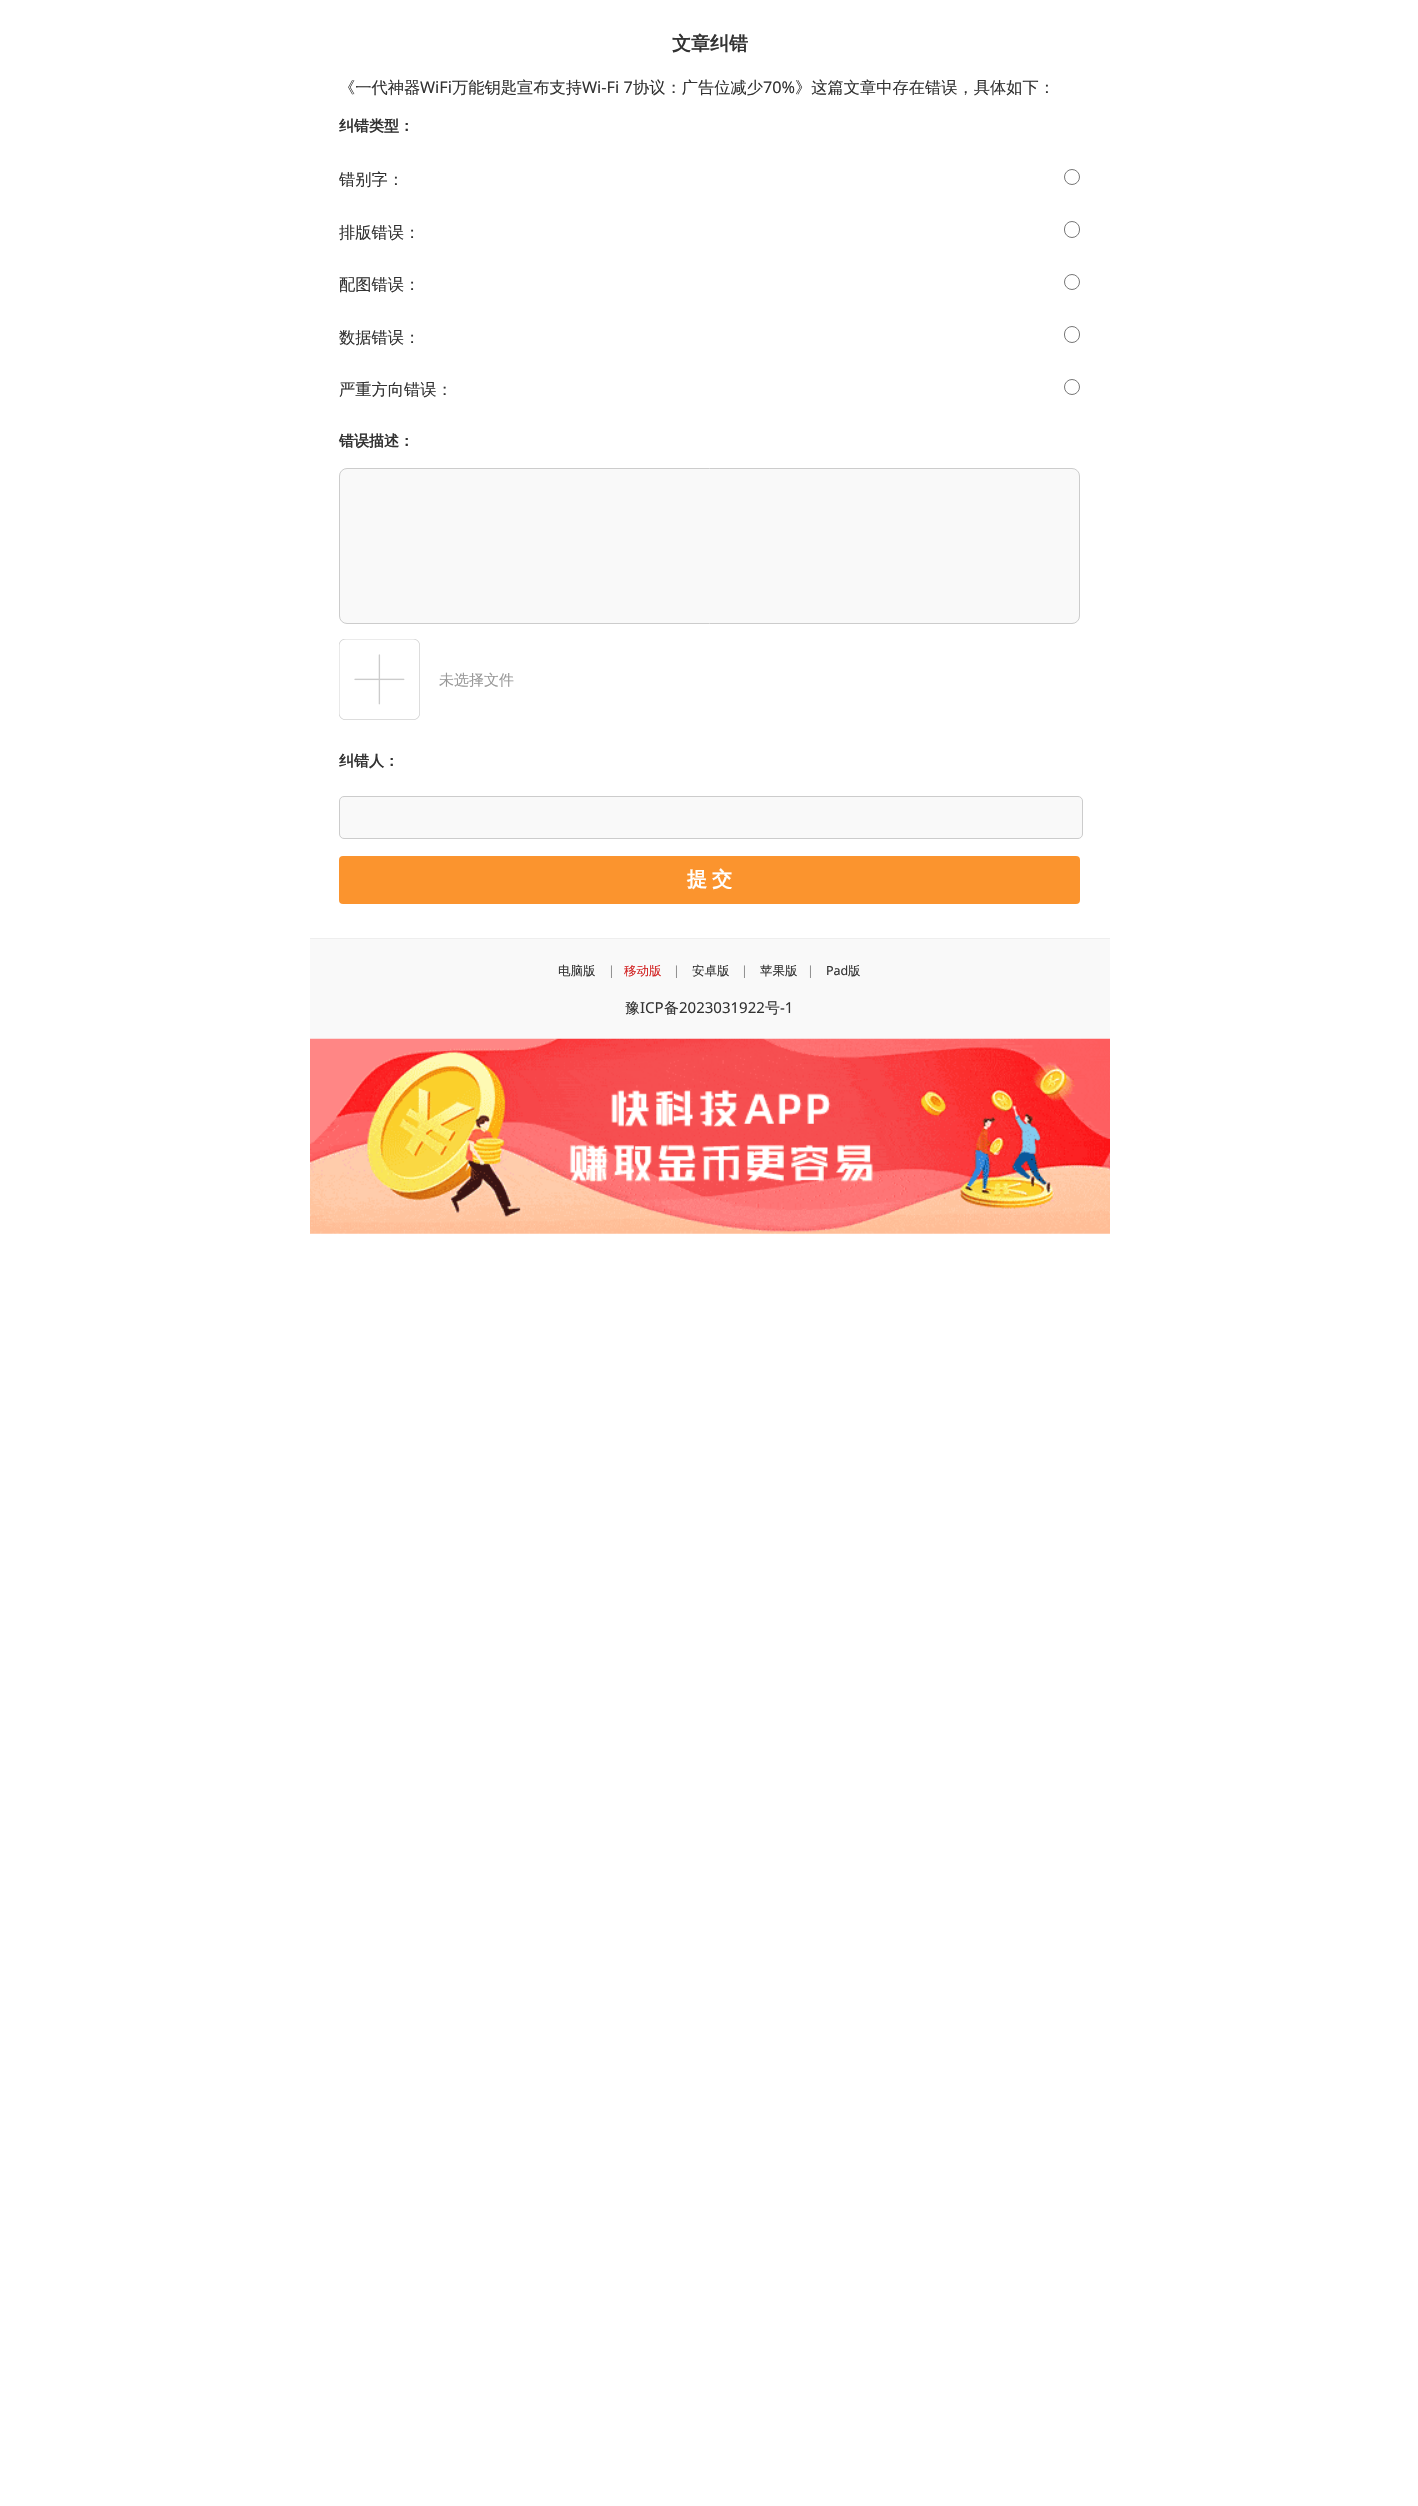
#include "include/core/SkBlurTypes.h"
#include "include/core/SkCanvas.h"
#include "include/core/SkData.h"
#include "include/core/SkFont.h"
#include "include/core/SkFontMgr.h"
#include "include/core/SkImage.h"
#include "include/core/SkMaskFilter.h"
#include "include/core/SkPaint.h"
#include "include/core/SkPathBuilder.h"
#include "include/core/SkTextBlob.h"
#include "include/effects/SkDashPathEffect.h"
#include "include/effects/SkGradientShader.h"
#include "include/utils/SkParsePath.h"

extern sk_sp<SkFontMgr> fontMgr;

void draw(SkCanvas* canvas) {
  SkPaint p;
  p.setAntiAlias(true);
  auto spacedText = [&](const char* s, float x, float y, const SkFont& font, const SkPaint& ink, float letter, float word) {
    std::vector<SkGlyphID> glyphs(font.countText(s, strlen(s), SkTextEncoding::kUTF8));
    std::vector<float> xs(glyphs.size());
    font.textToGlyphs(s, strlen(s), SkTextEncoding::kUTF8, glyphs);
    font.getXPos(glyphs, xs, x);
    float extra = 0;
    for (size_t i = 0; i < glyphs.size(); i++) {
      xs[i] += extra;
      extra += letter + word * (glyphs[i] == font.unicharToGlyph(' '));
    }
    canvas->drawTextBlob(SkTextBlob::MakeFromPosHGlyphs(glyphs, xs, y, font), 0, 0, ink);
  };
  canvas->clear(SK_ColorWHITE);
  p.setStyle(SkPaint::kStroke_Style);
  p.setStrokeWidth(1);
  p.setColor(SkColorSetRGB(118, 118, 118));
  canvas->drawCircle(1072, 177, 7.5f, p);
  canvas->drawRoundRect(SkRect::MakeLTRB(1064.5f, 221.5f, 1079.5f, 237.5f), 7.5f, 7.5f, p);
  canvas->drawCircle(1072, 282, 7.5f, p);
  canvas->drawRoundRect(SkRect::MakeLTRB(1064.5f, 326.5f, 1079.5f, 342.5f), 7.5f, 7.5f, p);
  canvas->drawCircle(1072, 387, 7.5f, p);
  p.setStyle(SkPaint::kFill_Style);
  p.setColor(SkColorSetRGB(249, 249, 249));
  canvas->drawRoundRect(SkRect::MakeLTRB(339.5f, 468.5f, 1079.5f, 623.5f), 7.5f, 7.5f, p);
  p.setStyle(SkPaint::kStroke_Style);
  p.setColor(SkColorSetRGB(204, 204, 204));
  canvas->drawRoundRect(SkRect::MakeLTRB(339.5f, 468.5f, 1079.5f, 623.5f), 7.5f, 7.5f, p);
  canvas->drawImageRect(SkImages::DeferredFromEncodedData(SkData::MakeFromFileName("images/1.png")), SkRect::MakeLTRB(339, 639, 420, 720), SkSamplingOptions());
  p.setStyle(SkPaint::kFill_Style);
  p.setColor(SkColorSetRGB(249, 249, 249));
  canvas->drawRoundRect(SkRect::MakeLTRB(339.5f, 796.5f, 1082.5f, 838.5f), 4.5f, 4.5f, p);
  p.setStyle(SkPaint::kStroke_Style);
  p.setColor(SkColorSetRGB(204, 204, 204));
  canvas->drawRoundRect(SkRect::MakeLTRB(339.5f, 796.5f, 1082.5f, 838.5f), 4.5f, 4.5f, p);
  p.setStyle(SkPaint::kFill_Style);
  p.setColor(SkColorSetRGB(251, 148, 46));
  canvas->drawRoundRect(SkRect::MakeLTRB(339, 856, 1080, 904), 4, 4, p);
  p.setColor(SkColorSetRGB(249, 249, 249));
  canvas->drawRect(SkRect::MakeLTRB(310, 939, 1110, 1039), p);
  p.setColor(SkColorSetRGB(238, 238, 238));
  canvas->drawRect(SkRect::MakeLTRB(310, 938, 1110, 939), p);
  canvas->drawImageRect(SkImages::DeferredFromEncodedData(SkData::MakeFromFileName("images/2.png")), SkRect::MakeLTRB(310, 1038, 1110, 1234), SkSamplingOptions());
  SkFont font1(fontMgr->matchFamilyStyle("WenQuanYi Zen Hei", SkFontStyle::Bold()), 19);
  font1.setSubpixel(true);
  p.setColor(SkColorSetRGB(51, 51, 51));
  canvas->drawString("文章纠错", 672, 50, font1, p);
  SkFont font2(fontMgr->matchFamilyStyle("WenQuanYi Zen Hei", SkFontStyle(500, SkFontStyle::kNormal_Width, SkFontStyle::kUpright_Slant)), 16.25f);
  font2.setSubpixel(true);
  canvas->drawString("《一代神器", 339, 93, font2, p);
  SkFont font3(fontMgr->matchFamilyStyle("Noto Sans", SkFontStyle::Normal()), 16.25f);
  font3.setSubpixel(true);
  canvas->drawString("WiFi", 420, 93, font3, p);
  canvas->drawString("万能钥匙宣布支持", 452, 93, font2, p);
  canvas->drawString("Wi-Fi 7", 582, 93, font3, p);
  canvas->drawString("协议：广告位减少", 633, 93, font2, p);
  canvas->drawString("70%", 763, 93, font3, p);
  canvas->drawString("》这篇文章中存在错误，具体如下：", 795, 93, font2, p);
  SkFont font4(fontMgr->matchFamilyStyle("WenQuanYi Zen Hei", SkFontStyle::Bold()), 15);
  font4.setSubpixel(true);
  canvas->drawString("纠错类型：", 339, 131, font4, p);
  canvas->drawString("错别字：", 339, 185, font2, p);
  canvas->drawString("排版错误：", 339, 238, font2, p);
  canvas->drawString("配图错误：", 339, 290, font2, p);
  canvas->drawString("数据错误：", 339, 343, font2, p);
  canvas->drawString("严重方向错误：", 339, 395, font2, p);
  canvas->drawString("错误描述：", 339, 446, font4, p);
  SkFont font5(fontMgr->matchFamilyStyle("WenQuanYi Zen Hei", SkFontStyle(500, SkFontStyle::kNormal_Width, SkFontStyle::kUpright_Slant)), 15);
  font5.setSubpixel(true);
  p.setColor(SkColorSetRGB(153, 153, 153));
  canvas->drawString("未选择文件", 439, 685, font5, p);
  p.setColor(SkColorSetRGB(51, 51, 51));
  canvas->drawString("纠错人：", 339, 766, font4, p);
  SkFont font6(fontMgr->matchFamilyStyle("WenQuanYi Zen Hei", SkFontStyle::Bold()), 20);
  font6.setSubpixel(true);
  p.setColor(SK_ColorWHITE);
  spacedText("提 交", 687, 886, font6, p, 0, -1);
  SkFont font7(fontMgr->matchFamilyStyle("WenQuanYi Zen Hei", SkFontStyle(500, SkFontStyle::kNormal_Width, SkFontStyle::kUpright_Slant)), 12.5f);
  font7.setSubpixel(true);
  p.setColor(SkColorSetRGB(51, 51, 51));
  canvas->drawString("电脑版", 558, 975, font7, p);
  SkFont font8(fontMgr->matchFamilyStyle("Noto Sans", SkFontStyle::Normal()), 12.5f);
  font8.setSubpixel(true);
  p.setColor(SkColorSetRGB(139, 139, 139));
  canvas->drawString("|", 608, 975, font8, p);
  p.setColor(SkColorSetRGB(210, 34, 34));
  canvas->drawString("移动版", 624, 975, font7, p);
  p.setColor(SkColorSetRGB(139, 139, 139));
  canvas->drawString("|", 673, 975, font8, p);
  p.setColor(SkColorSetRGB(51, 51, 51));
  canvas->drawString("安卓版", 692, 975, font7, p);
  p.setColor(SkColorSetRGB(139, 139, 139));
  canvas->drawString("|", 741, 975, font8, p);
  p.setColor(SkColorSetRGB(51, 51, 51));
  canvas->drawString("苹果版", 760, 975, font7, p);
  p.setColor(SkColorSetRGB(139, 139, 139));
  canvas->drawString("|", 807, 975, font8, p);
  p.setColor(SkColorSetRGB(51, 51, 51));
  canvas->drawString("Pad", 826, 975, font8, p);
  canvas->drawString("版", 848, 975, font7, p);
  canvas->drawString("豫", 625, 1013, font5, p);
  SkFont font9(fontMgr->matchFamilyStyle("Noto Sans", SkFontStyle::Normal()), 15);
  font9.setSubpixel(true);
  canvas->drawString("ICP", 640, 1013, font9, p);
  canvas->drawString("备", 664, 1013, font5, p);
  canvas->drawString("2023031922", 679, 1013, font9, p);
  canvas->drawString("号", 765, 1013, font5, p);
  canvas->drawString("-1", 780, 1013, font9, p);
}
